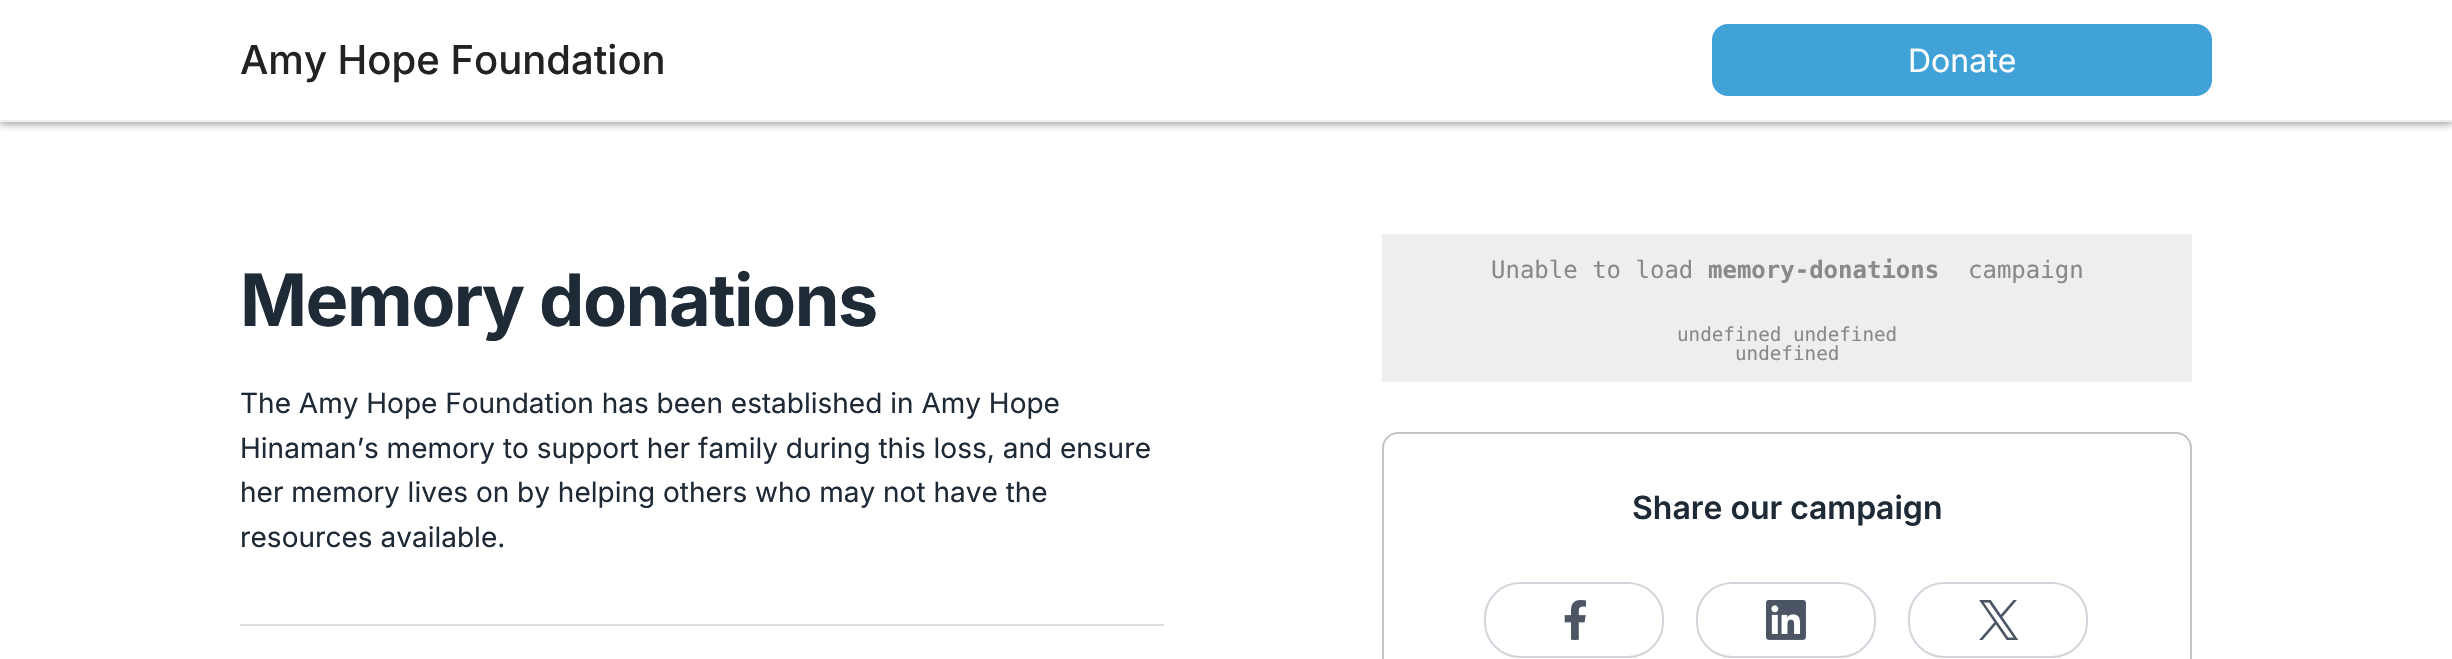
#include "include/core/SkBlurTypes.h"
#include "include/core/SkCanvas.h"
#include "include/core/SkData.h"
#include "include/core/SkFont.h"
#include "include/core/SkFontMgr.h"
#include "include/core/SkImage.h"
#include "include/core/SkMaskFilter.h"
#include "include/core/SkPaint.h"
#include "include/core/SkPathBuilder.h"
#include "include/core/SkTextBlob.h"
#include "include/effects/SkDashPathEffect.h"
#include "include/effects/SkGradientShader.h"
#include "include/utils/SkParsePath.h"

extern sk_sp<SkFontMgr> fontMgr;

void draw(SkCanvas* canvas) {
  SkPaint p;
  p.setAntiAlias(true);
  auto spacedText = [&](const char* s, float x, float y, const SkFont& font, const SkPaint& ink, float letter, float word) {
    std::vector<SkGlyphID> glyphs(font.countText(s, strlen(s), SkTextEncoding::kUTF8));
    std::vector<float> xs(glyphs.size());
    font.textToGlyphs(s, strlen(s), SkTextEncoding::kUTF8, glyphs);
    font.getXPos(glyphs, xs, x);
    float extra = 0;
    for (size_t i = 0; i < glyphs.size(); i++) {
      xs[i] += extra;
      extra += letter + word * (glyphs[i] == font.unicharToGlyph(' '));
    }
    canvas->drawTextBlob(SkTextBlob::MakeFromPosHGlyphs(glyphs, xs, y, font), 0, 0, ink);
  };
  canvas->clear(SK_ColorWHITE);
  canvas->save();
  canvas->clipRect(SkRect::MakeLTRB(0, 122, 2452, 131));
  p.setColor(SkColorSetARGB(102, 0, 0, 0));
  p.setMaskFilter(SkMaskFilter::MakeBlur(kNormal_SkBlurStyle, 4));
  canvas->drawRect(SkRect::MakeLTRB(0, 2, 2452, 124), p);
  p.setMaskFilter(nullptr);
  canvas->restore();
  p.setColor(SkColorSetRGB(238, 238, 238));
  canvas->drawRect(SkRect::MakeLTRB(0, 120, 2452, 122), p);
  p.setColor(SkColorSetRGB(65, 162, 216));
  canvas->drawRoundRect(SkRect::MakeLTRB(1712, 24, 2212, 96), 16, 16, p);
  p.setColor(SkColorSetRGB(221, 221, 221));
  canvas->drawRect(SkRect::MakeLTRB(240, 624, 1164, 626), p);
  p.setColor(SkColorSetRGB(238, 238, 238));
  canvas->drawRect(SkRect::MakeLTRB(1382, 234, 2192, 382), p);
  p.setStyle(SkPaint::kStroke_Style);
  p.setStrokeWidth(2);
  p.setColor(SkColorSetRGB(196, 195, 195));
  canvas->drawRoundRect(SkRect::MakeLTRB(1383, 433, 2191, 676), 15, 15, p);
  p.setColor(SkColorSetRGB(209, 213, 219));
  canvas->drawRoundRect(SkRect::MakeLTRB(1485, 583, 1663, 657), 35, 35, p);
  canvas->drawImageRect(SkImages::DeferredFromEncodedData(SkData::MakeFromFileName("images/1.png")), SkRect::MakeLTRB(1564, 600, 1586, 640), SkSamplingOptions());
  canvas->drawRoundRect(SkRect::MakeLTRB(1697, 583, 1875, 657), 35, 35, p);
  canvas->drawImageRect(SkImages::DeferredFromEncodedData(SkData::MakeFromFileName("images/2.png")), SkRect::MakeLTRB(1766, 600, 1806, 640), SkSamplingOptions());
  canvas->drawRoundRect(SkRect::MakeLTRB(1909, 583, 2087, 657), 35, 35, p);
  canvas->drawImageRect(SkImages::DeferredFromEncodedData(SkData::MakeFromFileName("images/3.png")), SkRect::MakeLTRB(1979, 600, 2018, 640), SkSamplingOptions());
  SkFont font1(fontMgr->matchFamilyStyle("Inter", SkFontStyle(500, SkFontStyle::kNormal_Width, SkFontStyle::kUpright_Slant)), 40);
  font1.setSubpixel(true);
  p.setStyle(SkPaint::kFill_Style);
  p.setColor(SkColorSetRGB(34, 34, 34));
  canvas->drawString("Amy Hope Foundation", 240, 74, font1, p);
  SkFont font2(fontMgr->matchFamilyStyle("Inter", SkFontStyle::Normal()), 32);
  font2.setSubpixel(true);
  p.setColor(SK_ColorWHITE);
  canvas->drawString("Donate", 1908, 72, font2, p);
  SkFont font3(fontMgr->matchFamilyStyle("Inter", SkFontStyle::Bold()), 72);
  font3.setSubpixel(true);
  p.setColor(SkColorSetRGB(31, 42, 55));
  spacedText("Memory donations", 240, 326, font3, p, -1.5f, 0);
  SkFont font4(fontMgr->matchFamilyStyle("Inter", SkFontStyle::Normal()), 28);
  font4.setSubpixel(true);
  canvas->drawString("The Amy Hope Foundation has been established in Amy Hope", 240, 413, font4, p);
  canvas->drawString("Hinaman’s memory to support her family during this loss, and ensure", 240, 458, font4, p);
  canvas->drawString("her memory lives on by helping others who may not have the", 240, 502, font4, p);
  canvas->drawString("resources available.", 240, 547, font4, p);
  SkFont font5(fontMgr->matchFamilyStyle("DejaVu Sans Mono", SkFontStyle::Normal()), 24);
  font5.setSubpixel(true);
  p.setColor(SkColorSetRGB(137, 137, 137));
  canvas->drawString("Unable to load", 1491, 278, font5, p);
  SkFont font6(fontMgr->matchFamilyStyle("DejaVu Sans Mono", SkFontStyle::Bold()), 24);
  font6.setSubpixel(true);
  canvas->drawString("memory-donations", 1708, 278, font6, p);
  canvas->drawString("campaign", 1968, 278, font5, p);
  SkFont font7(fontMgr->matchFamilyStyle("DejaVu Sans Mono", SkFontStyle::Normal()), 19.25f);
  font7.setSubpixel(true);
  canvas->drawString("undefined undefined", 1677, 341, font7, p);
  canvas->drawString("undefined", 1735, 360, font7, p);
  SkFont font8(fontMgr->matchFamilyStyle("Inter", SkFontStyle(600, SkFontStyle::kNormal_Width, SkFontStyle::kUpright_Slant)), 32);
  font8.setSubpixel(true);
  p.setColor(SkColorSetRGB(31, 42, 55));
  canvas->drawString("Share our campaign", 1632, 519, font8, p);
}
